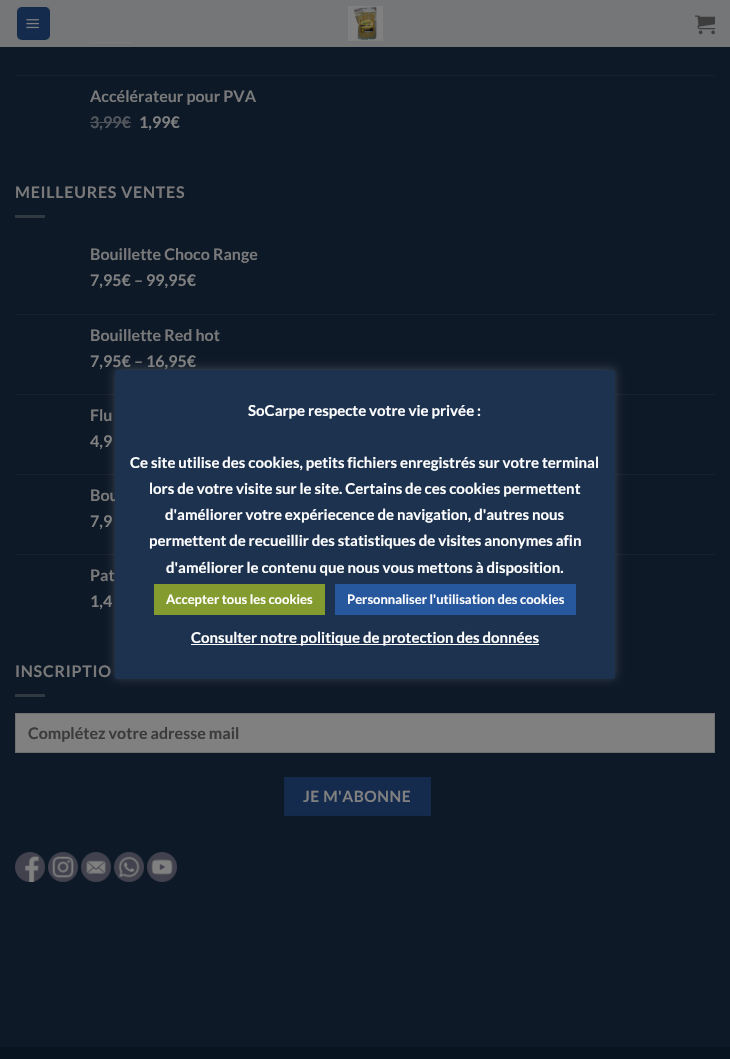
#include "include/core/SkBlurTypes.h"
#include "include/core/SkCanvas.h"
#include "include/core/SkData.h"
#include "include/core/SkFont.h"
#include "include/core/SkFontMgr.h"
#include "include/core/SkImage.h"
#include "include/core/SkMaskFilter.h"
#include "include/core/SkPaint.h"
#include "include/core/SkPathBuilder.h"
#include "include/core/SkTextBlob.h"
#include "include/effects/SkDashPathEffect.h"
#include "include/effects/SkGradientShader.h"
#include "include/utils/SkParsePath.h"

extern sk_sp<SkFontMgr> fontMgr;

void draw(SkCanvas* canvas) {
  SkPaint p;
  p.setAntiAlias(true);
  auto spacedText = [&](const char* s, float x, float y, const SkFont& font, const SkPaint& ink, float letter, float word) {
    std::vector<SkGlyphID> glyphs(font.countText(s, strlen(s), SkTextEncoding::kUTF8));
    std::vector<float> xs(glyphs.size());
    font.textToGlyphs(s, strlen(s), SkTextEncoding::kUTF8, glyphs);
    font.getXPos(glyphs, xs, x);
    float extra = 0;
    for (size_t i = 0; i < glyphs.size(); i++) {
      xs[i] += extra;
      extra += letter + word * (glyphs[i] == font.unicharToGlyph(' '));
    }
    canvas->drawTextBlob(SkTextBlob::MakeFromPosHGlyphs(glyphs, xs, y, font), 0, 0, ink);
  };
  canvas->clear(SkColorSetRGB(14, 25, 40));
  p.setColor(SkColorSetRGB(78, 82, 88));
  canvas->drawRect(SkRect::MakeLTRB(90, 42, 131, 43), p);
  p.setColor(SkColorSetARGB(230, 128, 128, 128));
  canvas->drawRect(SkRect::MakeLTRB(0, 0, 730, 47), p);
  p.setColor(SkColorSetRGB(20, 43, 78));
  canvas->drawRoundRect(SkRect::MakeLTRB(17, 7, 50, 40), 5, 5, p);
  p.setStyle(SkPaint::kStroke_Style);
  p.setStrokeWidth(1);
  p.setColor(SkColorSetARGB(13, 0, 0, 0));
  canvas->drawRect(SkRect::MakeLTRB(17.5f, 7.5f, 49.5f, 39.5f), p);
  canvas->drawImageRect(SkImages::DeferredFromEncodedData(SkData::MakeFromFileName("images/1.png")), SkRect::MakeLTRB(26, 19, 39, 29), SkSamplingOptions());
  canvas->drawImageRect(SkImages::DeferredFromEncodedData(SkData::MakeFromFileName("images/2.png")), SkRect::MakeLTRB(348, 6, 383, 41), SkSamplingOptions());
  canvas->drawImageRect(SkImages::DeferredFromEncodedData(SkData::MakeFromFileName("images/3.png")), SkRect::MakeLTRB(695, 15, 715, 35), SkSamplingOptions());
  p.setStyle(SkPaint::kFill_Style);
  p.setColor(SkColorSetRGB(23, 33, 47));
  canvas->drawRect(SkRect::MakeLTRB(15, 75, 715, 76), p);
  p.setColor(SkColorSetRGB(48, 56, 66));
  canvas->drawRect(SkRect::MakeLTRB(15, 215, 45, 218), p);
  p.setColor(SkColorSetRGB(23, 33, 47));
  canvas->drawRect(SkRect::MakeLTRB(15, 314, 715, 315), p);
  canvas->drawRect(SkRect::MakeLTRB(15, 394, 715, 395), p);
  canvas->drawRect(SkRect::MakeLTRB(15, 474, 715, 475), p);
  canvas->drawRect(SkRect::MakeLTRB(15, 554, 715, 555), p);
  p.setColor(SkColorSetRGB(48, 56, 66));
  canvas->drawRect(SkRect::MakeLTRB(15, 694, 45, 697), p);
  p.setColor(SkColorSetRGB(128, 128, 128));
  canvas->drawRect(SkRect::MakeLTRB(15.5f, 713.5f, 714.5f, 752.5f), p);
  p.setStyle(SkPaint::kStroke_Style);
  p.setColor(SkColorSetRGB(111, 111, 111));
  canvas->drawRect(SkRect::MakeLTRB(15.5f, 713.5f, 714.5f, 752.5f), p);
  p.setStyle(SkPaint::kFill_Style);
  p.setColor(SkColorSetRGB(20, 43, 78));
  canvas->drawRect(SkRect::MakeLTRB(284.5f, 777.5f, 430.5f, 815.5f), p);
  p.setStyle(SkPaint::kStroke_Style);
  p.setColor(SkColorSetRGB(19, 41, 74));
  canvas->drawRect(SkRect::MakeLTRB(284.5f, 777.5f, 430.5f, 815.5f), p);
  canvas->drawImageRect(SkImages::DeferredFromEncodedData(SkData::MakeFromFileName("images/4.png")), SkRect::MakeLTRB(15, 852, 45, 882), SkSamplingOptions());
  canvas->drawImageRect(SkImages::DeferredFromEncodedData(SkData::MakeFromFileName("images/5.png")), SkRect::MakeLTRB(48, 852, 78, 882), SkSamplingOptions());
  canvas->drawImageRect(SkImages::DeferredFromEncodedData(SkData::MakeFromFileName("images/6.png")), SkRect::MakeLTRB(81, 852, 111, 882), SkSamplingOptions());
  canvas->drawImageRect(SkImages::DeferredFromEncodedData(SkData::MakeFromFileName("images/7.png")), SkRect::MakeLTRB(114, 852, 144, 882), SkSamplingOptions());
  canvas->drawImageRect(SkImages::DeferredFromEncodedData(SkData::MakeFromFileName("images/8.png")), SkRect::MakeLTRB(147, 852, 177, 882), SkSamplingOptions());
  p.setStyle(SkPaint::kFill_Style);
  p.setColor(SkColorSetRGB(9, 20, 33));
  canvas->drawRect(SkRect::MakeLTRB(0, 1047, 730, 1059), p);
  p.setColor(SkColorSetARGB(77, 172, 171, 171));
  p.setMaskFilter(SkMaskFilter::MakeBlur(kNormal_SkBlurStyle, 5));
  canvas->drawRoundRect(SkRect::MakeLTRB(115, 369, 615, 678), 3, 3, p);
  p.setMaskFilter(nullptr);
  SkFont font1(fontMgr->matchFamilyStyle("Lato", SkFontStyle::Bold()), 16);
  font1.setSubpixel(true);
  p.setColor(SkColorSetRGB(121, 121, 121));
  canvas->drawString("Accélérateur pour PVA", 90, 102, font1, p);
  p.setColor(SkColorSetRGB(82, 87, 93));
  canvas->drawString("3,99€", 90, 128, font1, p);
  p.setColor(SkColorSetRGB(78, 82, 88));
  canvas->drawRect(SkRect::MakeLTRB(90, 122, 131, 123), p);
  p.setColor(SkColorSetRGB(128, 128, 128));
  canvas->drawString("1,99€", 139, 128, font1, p);
  p.setColor(SkColorSetRGB(121, 121, 121));
  spacedText("MEILLEURES VENTES", 15, 198, font1, p, 0.75f, 0);
  canvas->drawString("Bouillette Choco Range", 90, 260, font1, p);
  p.setColor(SkColorSetRGB(128, 128, 128));
  canvas->drawString("7,95€", 90, 286, font1, p);
  p.setColor(SkColorSetRGB(121, 121, 121));
  canvas->drawString("–", 134, 286, font1, p);
  p.setColor(SkColorSetRGB(128, 128, 128));
  canvas->drawString("99,95€", 146, 286, font1, p);
  p.setColor(SkColorSetRGB(121, 121, 121));
  canvas->drawString("Bouillette Red hot", 90, 341, font1, p);
  p.setColor(SkColorSetRGB(128, 128, 128));
  canvas->drawString("7,95€", 90, 367, font1, p);
  p.setColor(SkColorSetRGB(121, 121, 121));
  canvas->drawString("–", 134, 367, font1, p);
  p.setColor(SkColorSetRGB(128, 128, 128));
  canvas->drawString("16,95€", 146, 367, font1, p);
  p.setColor(SkColorSetRGB(121, 121, 121));
  canvas->drawString("Flu", 90, 421, font1, p);
  p.setColor(SkColorSetRGB(128, 128, 128));
  canvas->drawString("4,9", 90, 447, font1, p);
  p.setColor(SkColorSetRGB(121, 121, 121));
  canvas->drawString("Bou", 90, 501, font1, p);
  p.setColor(SkColorSetRGB(128, 128, 128));
  canvas->drawString("7,9", 90, 527, font1, p);
  p.setColor(SkColorSetRGB(121, 121, 121));
  canvas->drawString("Pat", 90, 581, font1, p);
  p.setColor(SkColorSetRGB(128, 128, 128));
  canvas->drawString("1,4", 90, 607, font1, p);
  p.setColor(SkColorSetRGB(121, 121, 121));
  spacedText("INSCRIPTIO", 15, 677, font1, p, 0.75f, 0);
  p.setColor(SkColorSetRGB(59, 59, 59));
  canvas->drawString("Complétez votre adresse mail", 28, 739, font1, p);
  SkFont font2(fontMgr->matchFamilyStyle("Lato", SkFontStyle::Bold()), 15.5f);
  font2.setSubpixel(true);
  p.setColor(SkColorSetRGB(128, 128, 128));
  spacedText("JE M'ABONNE", 303, 802, font2, p, 0.5f, 0);
  p.setColor(SkColorSetRGB(28, 50, 79));
  canvas->drawRoundRect(SkRect::MakeLTRB(115, 370, 615, 679), 3, 3, p);
  SkFont font3(fontMgr->matchFamilyStyle("Lato", SkFontStyle::Bold()), 15);
  font3.setSubpixel(true);
  p.setColor(SK_ColorWHITE);
  canvas->drawString("SoCarpe respecte votre vie privée :", 248, 416, font3, p);
  canvas->drawString("Ce site utilise des cookies, petits fichiers enregistrés sur votre terminal", 130, 468, font3, p);
  canvas->drawString("lors de votre visite sur le site. Certains de ces cookies permettent", 149, 494, font3, p);
  canvas->drawString("d'améliorer votre expériecence de navigation, d'autres nous", 165, 520, font3, p);
  canvas->drawString("permettent de recueillir des statistiques de visites anonymes afin", 149, 546, font3, p);
  canvas->drawString("d'améliorer le contenu que nous vous mettons à disposition.", 166, 573, font3, p);
  p.setColor(SkColorSetRGB(132, 156, 47));
  canvas->drawRect(SkRect::MakeLTRB(154, 584, 325, 615), p);
  SkFont font4(fontMgr->matchFamilyStyle("Lato", SkFontStyle::Bold()), 13);
  font4.setSubpixel(true);
  p.setColor(SK_ColorWHITE);
  canvas->drawString("Accepter tous les cookies", 166, 604, font4, p);
  p.setColor(SkColorSetRGB(39, 87, 156));
  canvas->drawRect(SkRect::MakeLTRB(335, 584, 576, 615), p);
  p.setColor(SK_ColorWHITE);
  canvas->drawString("Personnaliser l'utilisation des cookies", 347, 604, font4, p);
  canvas->drawRect(SkRect::MakeLTRB(191, 644, 539, 645), p);
  canvas->drawString("Consulter notre politique de protection des données", 191, 643, font3, p);
}
